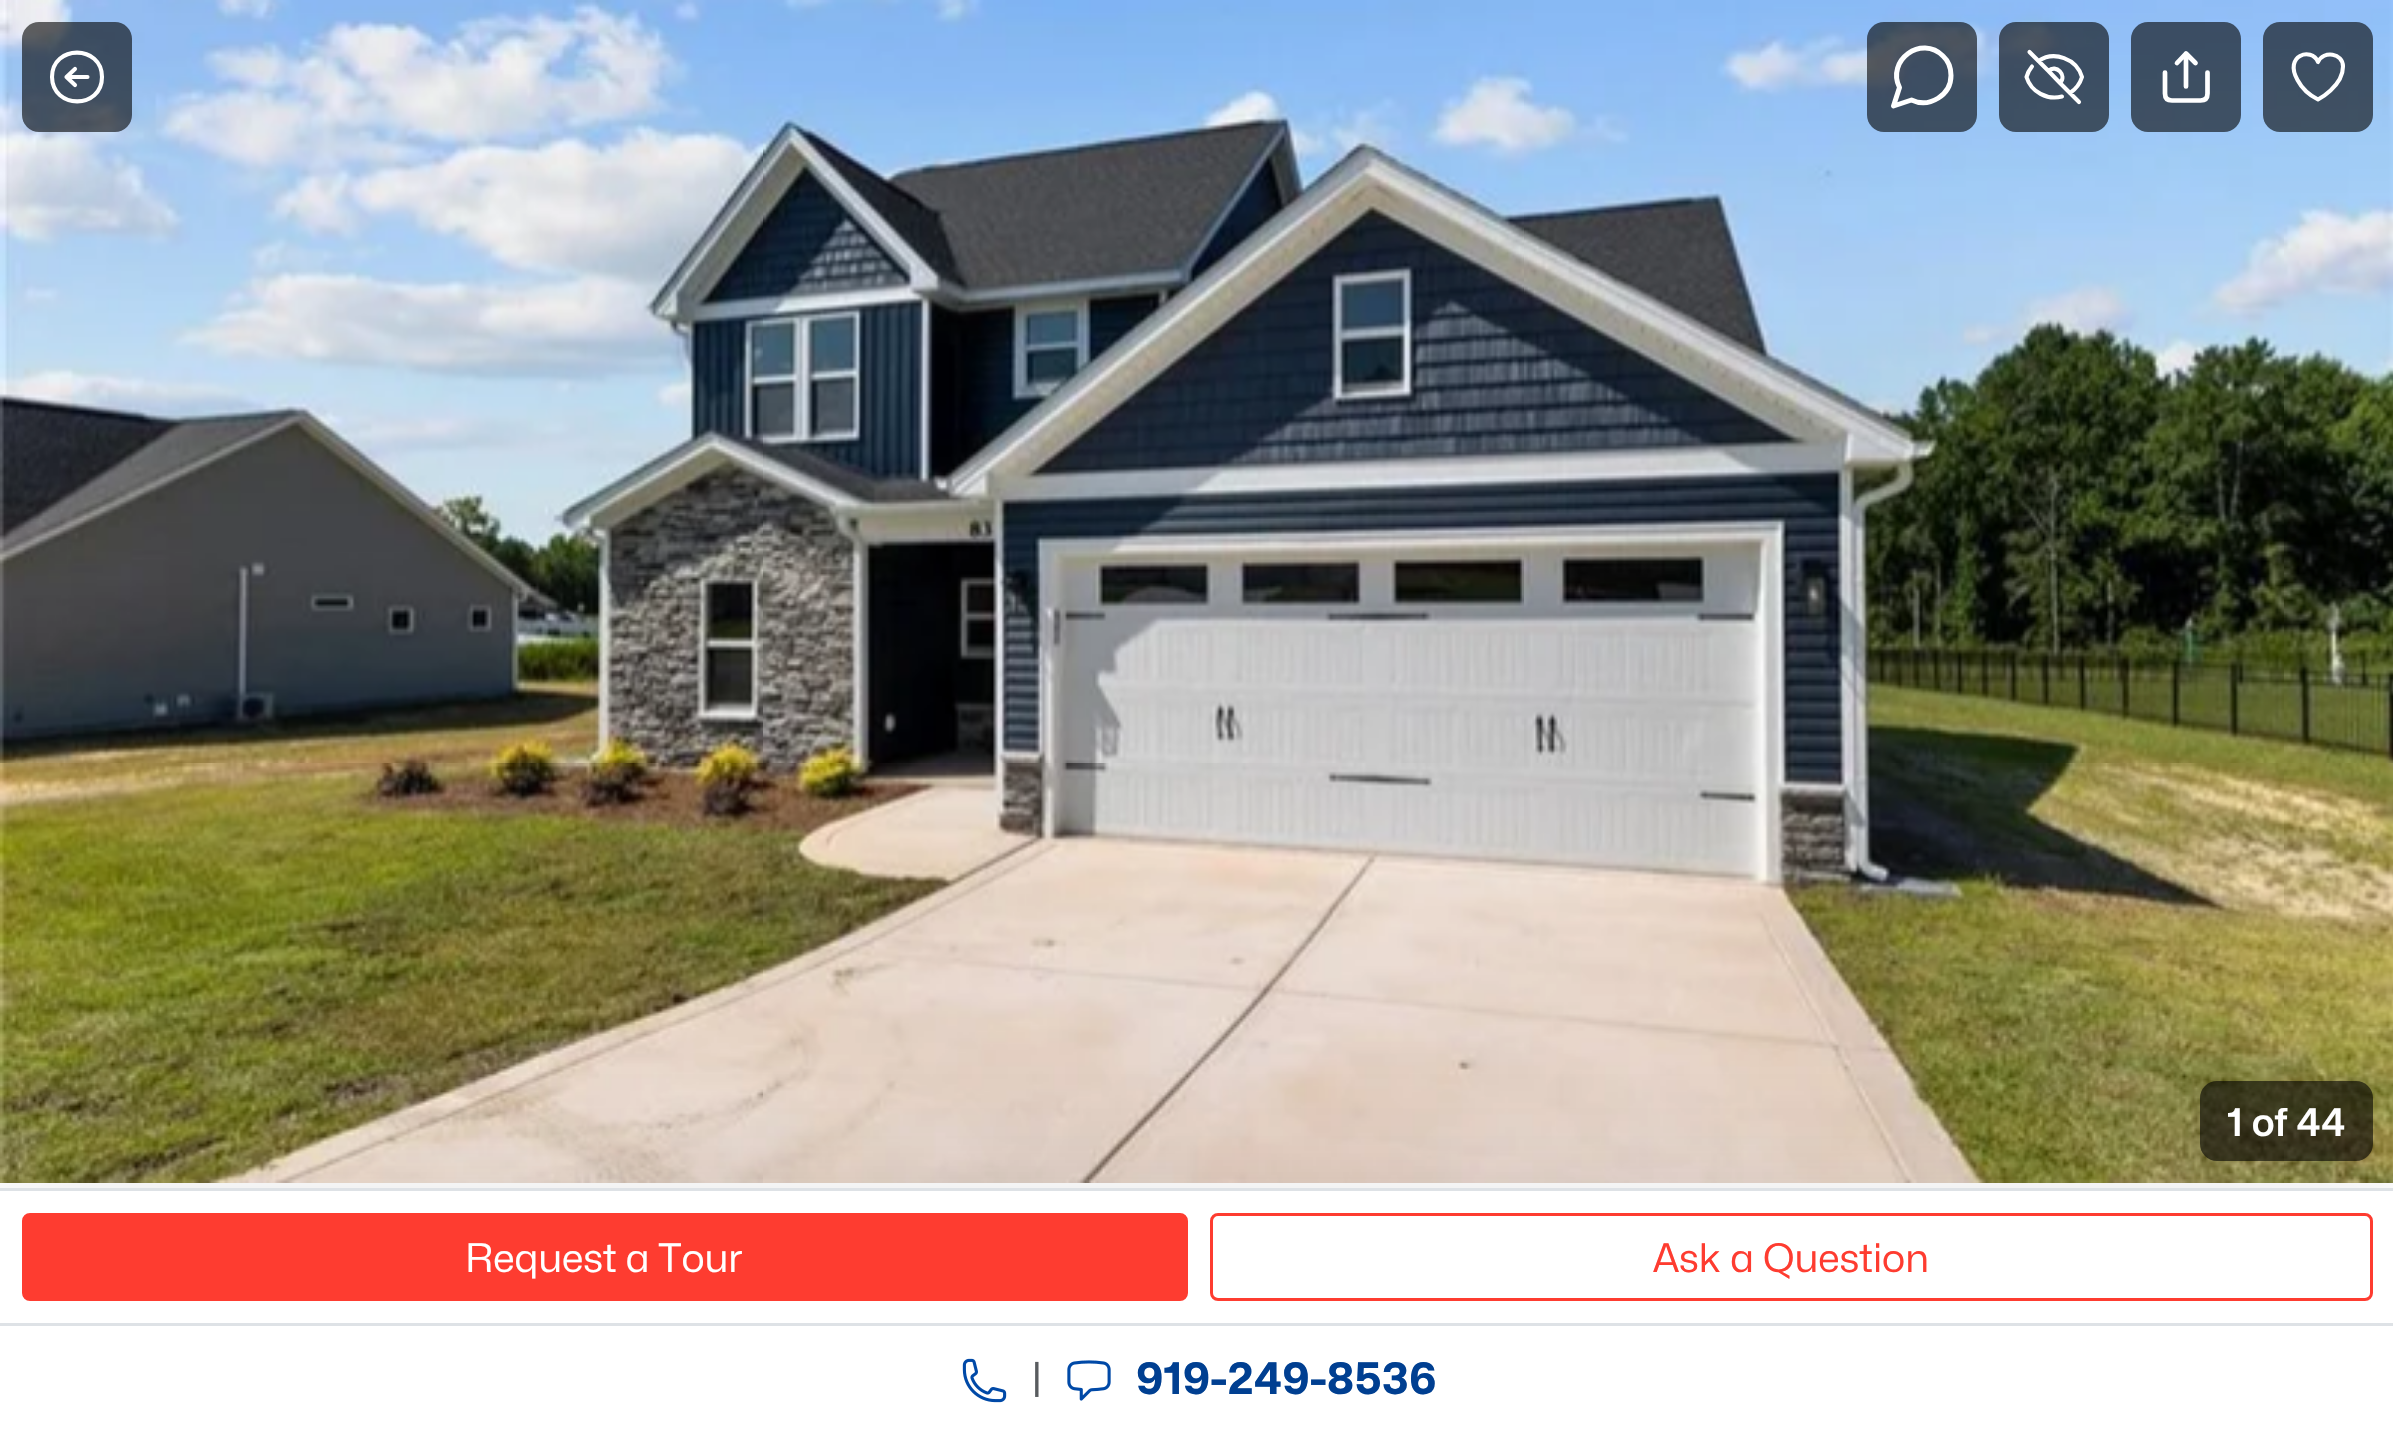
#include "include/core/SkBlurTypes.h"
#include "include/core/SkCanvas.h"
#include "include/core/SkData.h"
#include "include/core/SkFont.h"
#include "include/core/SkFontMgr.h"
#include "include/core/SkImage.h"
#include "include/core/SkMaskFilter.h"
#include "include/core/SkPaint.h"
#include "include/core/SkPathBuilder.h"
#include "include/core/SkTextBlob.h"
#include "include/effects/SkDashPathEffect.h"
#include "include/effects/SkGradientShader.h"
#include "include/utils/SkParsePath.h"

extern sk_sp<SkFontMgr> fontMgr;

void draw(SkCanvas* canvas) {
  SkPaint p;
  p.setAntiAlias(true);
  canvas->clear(SK_ColorWHITE);
  canvas->drawImageRect(SkImages::DeferredFromEncodedData(SkData::MakeFromFileName("images/1.png")), SkRect::MakeLTRB(0, 0, 2393, 1183), SkSamplingOptions());
  p.setColor(SkColorSetARGB(153, 0, 0, 0));
  canvas->drawRoundRect(SkRect::MakeLTRB(22, 22, 132, 132), 17, 17, p);
  p.setStyle(SkPaint::kStroke_Style);
  p.setStrokeWidth(4.1f);
  p.setStrokeCap(SkPaint::kRound_Cap);
  p.setStrokeJoin(SkPaint::kRound_Join);
  p.setColor(SK_ColorWHITE);
  canvas->drawPath(SkPathBuilder().moveTo(75, 69).lineTo(66.5f, 77).moveTo(66.5f, 77).lineTo(75, 85).moveTo(66.5f, 77).lineTo(87.5f, 77).moveTo(102, 77).cubicTo(102, 109.5f, 52.5f, 109.5f, 52, 77).cubicTo(52, 44.5f, 102, 44.5f, 102, 77).close().detach(), p);
  p.setStyle(SkPaint::kFill_Style);
  p.setColor(SkColorSetARGB(153, 0, 0, 0));
  canvas->drawRoundRect(SkRect::MakeLTRB(1867, 22, 1977, 132), 17, 17, p);
  p.setStyle(SkPaint::kStroke_Style);
  p.setStrokeWidth(5);
  p.setColor(SK_ColorWHITE);
  canvas->drawPath(SkPathBuilder().moveTo(1951, 75.5f).cubicTo(1951, 95, 1929.5f, 108.5f, 1911.5f, 100).lineTo(1893.5f, 106).lineTo(1899.5f, 87.5f).cubicTo(1886, 60.5f, 1921.5f, 34.5f, 1943, 56).cubicTo(1948.5f, 61, 1951, 68, 1951, 75.5f).close().detach(), p);
  p.setStyle(SkPaint::kFill_Style);
  p.setColor(SkColorSetARGB(153, 0, 0, 0));
  canvas->drawRoundRect(SkRect::MakeLTRB(1999, 22, 2109, 132), 17, 17, p);
  p.setStyle(SkPaint::kStroke_Style);
  p.setStrokeWidth(4.1f);
  p.setColor(SK_ColorWHITE);
  canvas->drawPath(SkPathBuilder().moveTo(2032, 66.5f).cubicTo(2029.5f, 69.5f, 2027.5f, 73, 2026.5f, 77).cubicTo(2031, 92, 2047.5f, 100.5f, 2062, 96.5f).moveTo(2038.5f, 61).cubicTo(2054, 50.5f, 2076.5f, 58.5f, 2082, 77).cubicTo(2080, 83.5f, 2076, 89, 2070, 93).moveTo(2038.5f, 61).lineTo(2029.5f, 52).moveTo(2038.5f, 61).lineTo(2048.5f, 71).moveTo(2070, 93).lineTo(2079, 102).moveTo(2070, 93).lineTo(2060, 83).moveTo(2060, 83).cubicTo(2067.5f, 75.5f, 2056, 63.5f, 2048.5f, 71).moveTo(2060, 83).lineTo(2048.5f, 71).detach(), p);
  p.setStyle(SkPaint::kFill_Style);
  p.setColor(SkColorSetARGB(153, 0, 0, 0));
  canvas->drawRoundRect(SkRect::MakeLTRB(2131, 22, 2241, 132), 17, 17, p);
  p.setStyle(SkPaint::kStroke_Style);
  p.setStrokeWidth(4.7f);
  p.setColor(SK_ColorWHITE);
  canvas->drawPath(SkPathBuilder().moveTo(2165, 72.5f).lineTo(2165, 93.5f).cubicTo(2165, 98, 2167.5f, 100.5f, 2172, 100.5f).lineTo(2200.5f, 100.5f).cubicTo(2205, 100.5f, 2207.5f, 98, 2207.5f, 93.5f).lineTo(2207.5f, 72.5f).moveTo(2186, 53.5f).lineTo(2186, 86.5f).moveTo(2177, 63).lineTo(2186, 53.5f).lineTo(2195.5f, 63).detach(), p);
  p.setStyle(SkPaint::kFill_Style);
  p.setColor(SkColorSetARGB(153, 0, 0, 0));
  canvas->drawRoundRect(SkRect::MakeLTRB(2263, 22, 2373, 132), 17, 17, p);
  p.setStyle(SkPaint::kStroke_Style);
  p.setStrokeWidth(4.1f);
  p.setColor(SK_ColorWHITE);
  canvas->drawPath(SkPathBuilder().moveTo(2343, 66.5f).cubicTo(2343, 53, 2323.5f, 50, 2318, 62).cubicTo(2311.5f, 46.5f, 2283.5f, 55.5f, 2297.5f, 80).cubicTo(2302, 88.5f, 2310, 95.5f, 2318, 99.5f).cubicTo(2318, 99.5f, 2343, 86.5f, 2343, 66.5f).close().detach(), p);
  p.setStyle(SkPaint::kFill_Style);
  p.setColor(SkColorSetARGB(153, 0, 0, 0));
  canvas->drawRoundRect(SkRect::MakeLTRB(2200, 1081, 2373, 1161), 17, 17, p);
  p.setColor(SkColorSetARGB(46, 0, 0, 0));
  p.setMaskFilter(SkMaskFilter::MakeBlur(kNormal_SkBlurStyle, 66));
  canvas->drawRect(SkRect::MakeLTRB(0, 1232, 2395, 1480), p);
  p.setMaskFilter(nullptr);
  p.setColor(SK_ColorWHITE);
  canvas->drawRect(SkRect::MakeLTRB(0, 1191, 2393, 1435), p);
  p.setColor(SkColorSetRGB(222, 226, 230));
  canvas->drawRect(SkRect::MakeLTRB(0, 1188, 2393, 1191), p);
  p.setColor(SkColorSetRGB(254, 60, 48));
  canvas->drawRoundRect(SkRect::MakeLTRB(23.5f, 1214.5f, 1186.5f, 1299.5f), 6.5f, 6.5f, p);
  p.setStyle(SkPaint::kStroke_Style);
  p.setStrokeWidth(3);
  p.setStrokeCap(SkPaint::kButt_Cap);
  p.setStrokeJoin(SkPaint::kMiter_Join);
  canvas->drawRoundRect(SkRect::MakeLTRB(23.5f, 1214.5f, 1186.5f, 1299.5f), 6.5f, 6.5f, p);
  canvas->drawRoundRect(SkRect::MakeLTRB(1211.5f, 1214.5f, 2371.5f, 1299.5f), 6.5f, 6.5f, p);
  p.setStyle(SkPaint::kFill_Style);
  p.setColor(SkColorSetRGB(222, 226, 230));
  canvas->drawRect(SkRect::MakeLTRB(0, 1323, 2393, 1326), p);
  canvas->drawImageRect(SkImages::DeferredFromEncodedData(SkData::MakeFromFileName("images/2.png")), SkRect::MakeLTRB(962, 1358, 1007, 1403), SkSamplingOptions());
  canvas->drawImageRect(SkImages::DeferredFromEncodedData(SkData::MakeFromFileName("images/3.png")), SkRect::MakeLTRB(1067, 1360, 1111, 1401), SkSamplingOptions());
  SkFont font1(fontMgr->matchFamilyStyle("Mona Sans", SkFontStyle(600, SkFontStyle::kNormal_Width, SkFontStyle::kUpright_Slant)), 38.5f);
  font1.setSubpixel(true);
  p.setColor(SK_ColorWHITE);
  canvas->drawString("1 of 44", 2227, 1136, font1, p);
  SkFont font2(fontMgr->matchFamilyStyle("Mona Sans", SkFontStyle::Normal()), 39.5f);
  font2.setSubpixel(true);
  canvas->drawString("Request a Tour", 465, 1272, font2, p);
  p.setColor(SkColorSetRGB(254, 60, 48));
  canvas->drawString("Ask a Question", 1653, 1272, font2, p);
  SkFont font3(fontMgr->matchFamilyStyle("Mona Sans", SkFontStyle::Normal()), 44);
  font3.setSubpixel(true);
  p.setColor(SkColorSetRGB(89, 92, 95));
  canvas->drawString("|", 1031, 1394, font3, p);
  SkFont font4(fontMgr->matchFamilyStyle("Mona Sans", SkFontStyle::Bold()), 44);
  font4.setSubpixel(true);
  p.setColor(SkColorSetRGB(0, 63, 145));
  canvas->drawString("919-249-8536", 1136, 1394, font4, p);
}
